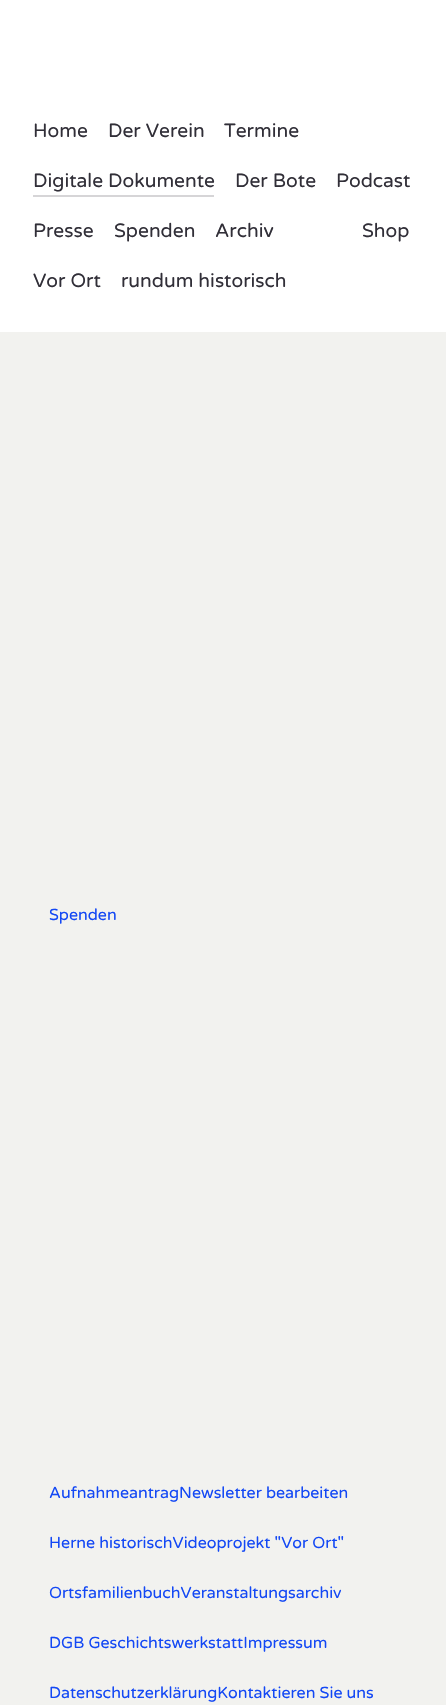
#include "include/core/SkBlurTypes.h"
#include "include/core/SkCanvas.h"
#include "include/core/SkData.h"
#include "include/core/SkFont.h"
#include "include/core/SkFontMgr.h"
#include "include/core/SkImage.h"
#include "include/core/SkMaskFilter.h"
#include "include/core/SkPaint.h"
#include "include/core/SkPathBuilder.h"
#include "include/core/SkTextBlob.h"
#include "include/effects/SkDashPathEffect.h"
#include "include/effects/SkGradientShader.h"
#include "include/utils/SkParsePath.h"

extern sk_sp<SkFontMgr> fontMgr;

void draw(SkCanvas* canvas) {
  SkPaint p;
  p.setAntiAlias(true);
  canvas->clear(SkColorSetRGB(242, 242, 239));
  p.setColor(SK_ColorWHITE);
  canvas->drawRect(SkRect::MakeLTRB(0, 0, 446, 332), p);
  p.setColor(SkColorSetRGB(214, 213, 215));
  canvas->drawRect(SkRect::MakeLTRB(33, 195, 214, 197), p);
  SkFont font1(fontMgr->matchFamilyStyle("Varela Round", SkFontStyle::Normal()), 19.25f);
  font1.setSubpixel(true);
  p.setColor(SkColorSetRGB(49, 47, 56));
  canvas->drawString("Home", 33, 137, font1, p);
  canvas->drawString("Der Verein", 108, 137, font1, p);
  canvas->drawString("Termine", 224, 137, font1, p);
  canvas->drawString("Digitale Dokumente", 33, 187, font1, p);
  canvas->drawString("Der Bote", 235, 187, font1, p);
  canvas->drawString("Podcast", 336, 187, font1, p);
  canvas->drawString("Presse", 33, 237, font1, p);
  canvas->drawString("Spenden", 114, 237, font1, p);
  canvas->drawString("Archiv", 215, 237, font1, p);
  canvas->drawString("Shop", 362, 237, font1, p);
  canvas->drawString("Vor Ort", 33, 287, font1, p);
  canvas->drawString("rundum historisch", 121, 287, font1, p);
  SkFont font2(fontMgr->matchFamilyStyle("Varela Round", SkFontStyle::Normal()), 16);
  font2.setSubpixel(true);
  p.setColor(SkColorSetRGB(19, 72, 245));
  canvas->drawString("Spenden", 49, 920, font2, p);
  canvas->drawString("AufnahmeantragNewsletter bearbeiten", 49, 1498, font2, p);
  canvas->drawString("Herne historischVideoprojekt \"Vor Ort\"", 49, 1548, font2, p);
  canvas->drawString("OrtsfamilienbuchVeranstaltungsarchiv", 49, 1598, font2, p);
  canvas->drawString("DGB GeschichtswerkstattImpressum", 49, 1648, font2, p);
  canvas->drawString("DatenschutzerklärungKontaktieren Sie uns", 49, 1698, font2, p);
}
